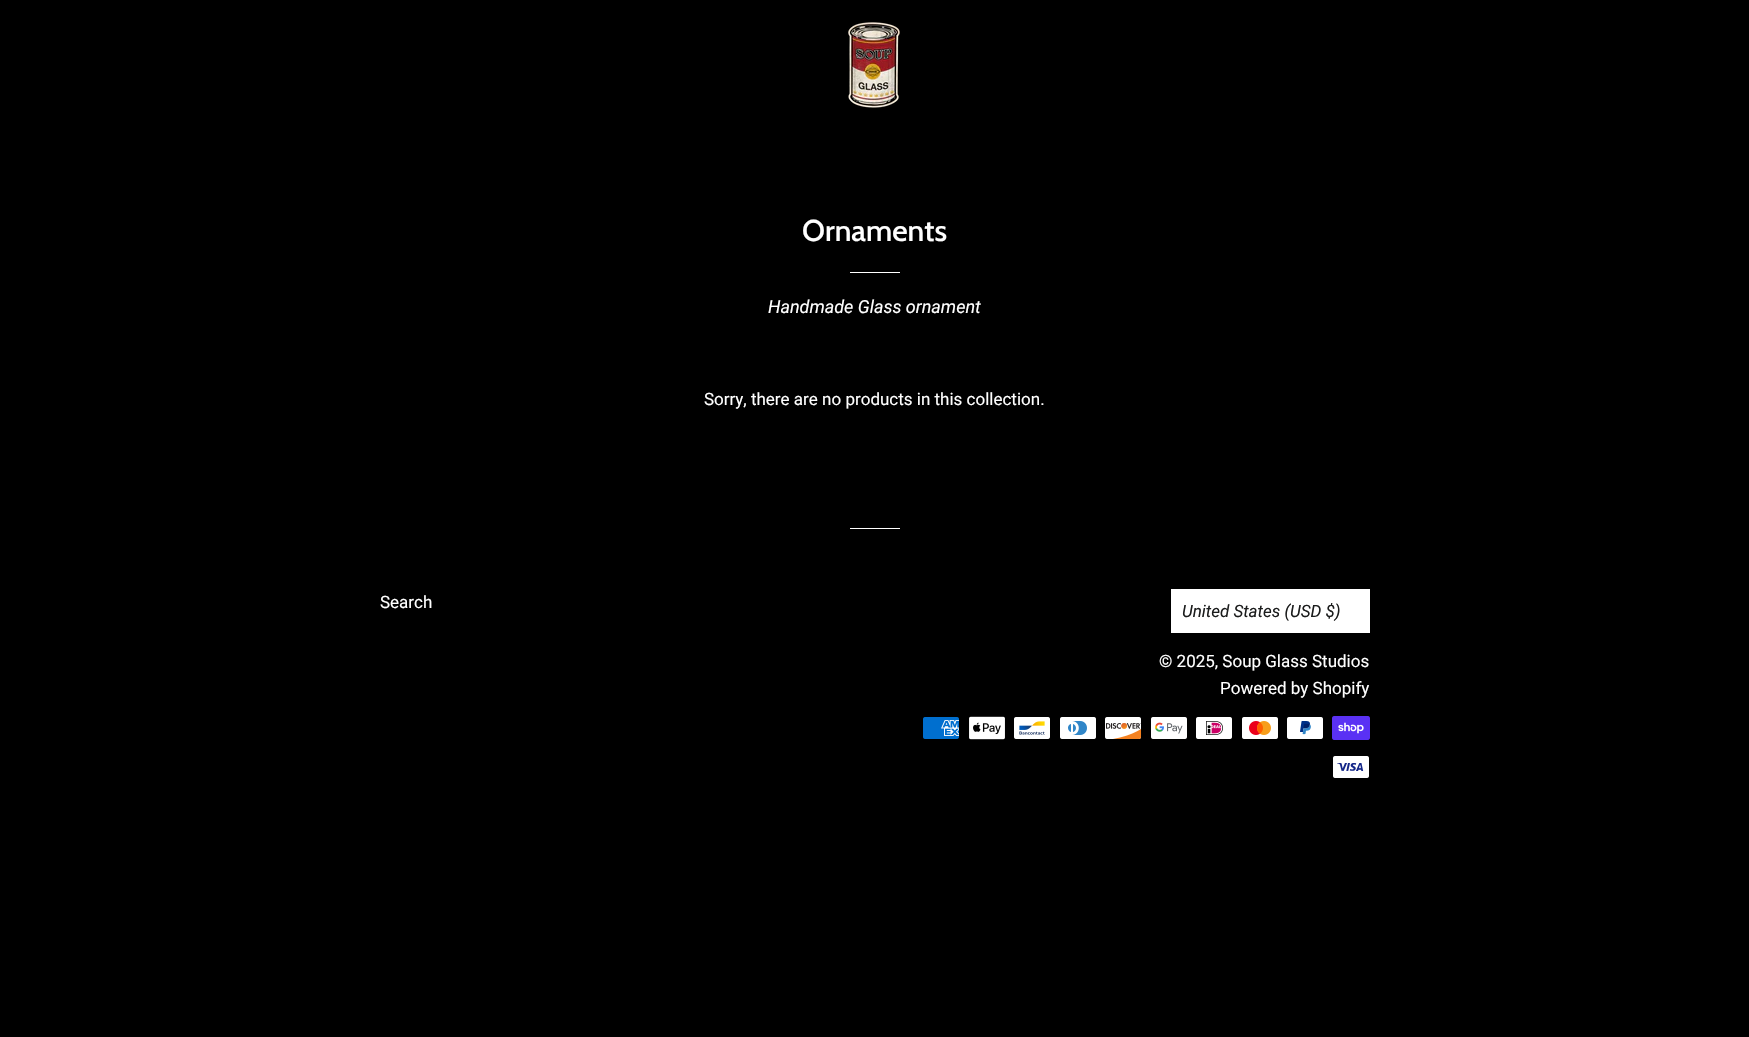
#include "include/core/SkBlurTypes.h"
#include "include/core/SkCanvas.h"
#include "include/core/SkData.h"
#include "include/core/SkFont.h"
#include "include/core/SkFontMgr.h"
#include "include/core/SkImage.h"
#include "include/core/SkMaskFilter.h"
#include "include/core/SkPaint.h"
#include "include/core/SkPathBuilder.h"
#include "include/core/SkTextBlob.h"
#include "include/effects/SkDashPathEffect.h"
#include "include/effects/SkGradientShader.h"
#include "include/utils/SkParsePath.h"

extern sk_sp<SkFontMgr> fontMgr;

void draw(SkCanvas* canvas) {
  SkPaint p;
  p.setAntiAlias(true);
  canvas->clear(SK_ColorBLACK);
  canvas->drawImageRect(SkImages::DeferredFromEncodedData(SkData::MakeFromFileName("images/1.png")), SkRect::MakeLTRB(848, 22, 900, 108), SkSamplingOptions());
  p.setColor(SK_ColorWHITE);
  canvas->drawRect(SkRect::MakeLTRB(850, 272, 900, 273), p);
  canvas->drawRect(SkRect::MakeLTRB(850, 528, 900, 529), p);
  canvas->drawRect(SkRect::MakeLTRB(1171, 589, 1370, 633), p);
  canvas->drawImageRect(SkImages::DeferredFromEncodedData(SkData::MakeFromFileName("images/2.png")), SkRect::MakeLTRB(923, 717, 959, 739), SkSamplingOptions());
  canvas->drawImageRect(SkImages::DeferredFromEncodedData(SkData::MakeFromFileName("images/3.png")), SkRect::MakeLTRB(969, 716, 1005, 740), SkSamplingOptions());
  canvas->drawImageRect(SkImages::DeferredFromEncodedData(SkData::MakeFromFileName("images/4.png")), SkRect::MakeLTRB(1014, 717, 1050, 739), SkSamplingOptions());
  canvas->drawImageRect(SkImages::DeferredFromEncodedData(SkData::MakeFromFileName("images/5.png")), SkRect::MakeLTRB(1060, 717, 1096, 739), SkSamplingOptions());
  canvas->drawImageRect(SkImages::DeferredFromEncodedData(SkData::MakeFromFileName("images/6.png")), SkRect::MakeLTRB(1105, 717, 1142, 739), SkSamplingOptions());
  canvas->drawImageRect(SkImages::DeferredFromEncodedData(SkData::MakeFromFileName("images/7.png")), SkRect::MakeLTRB(1151, 717, 1187, 739), SkSamplingOptions());
  canvas->drawImageRect(SkImages::DeferredFromEncodedData(SkData::MakeFromFileName("images/8.png")), SkRect::MakeLTRB(1196, 717, 1232, 739), SkSamplingOptions());
  canvas->drawImageRect(SkImages::DeferredFromEncodedData(SkData::MakeFromFileName("images/9.png")), SkRect::MakeLTRB(1242, 717, 1278, 739), SkSamplingOptions());
  canvas->drawImageRect(SkImages::DeferredFromEncodedData(SkData::MakeFromFileName("images/10.png")), SkRect::MakeLTRB(1287, 717, 1323, 739), SkSamplingOptions());
  canvas->drawImageRect(SkImages::DeferredFromEncodedData(SkData::MakeFromFileName("images/11.png")), SkRect::MakeLTRB(1332, 716, 1370, 740), SkSamplingOptions());
  canvas->drawImageRect(SkImages::DeferredFromEncodedData(SkData::MakeFromFileName("images/12.png")), SkRect::MakeLTRB(1333, 756, 1369, 778), SkSamplingOptions());
  SkFont font1(fontMgr->matchFamilyStyle("Cabin", SkFontStyle(500, SkFontStyle::kNormal_Width, SkFontStyle::kUpright_Slant)), 30);
  font1.setSubpixel(true);
  canvas->drawString("Ornaments", 802, 241, font1, p);
  SkFont font2(fontMgr->matchFamilyStyle("Roboto", SkFontStyle::Italic()), 18);
  font2.setSubpixel(true);
  canvas->drawString("Handmade Glass ornament", 768, 313, font2, p);
  SkFont font3(fontMgr->matchFamilyStyle("Roboto", SkFontStyle::Normal()), 17);
  font3.setSubpixel(true);
  canvas->drawString("Sorry, there are no products in this collection.", 704, 405, font3, p);
  canvas->drawString("Search", 380, 608, font3, p);
  SkFont font4(fontMgr->matchFamilyStyle("Roboto", SkFontStyle::Italic()), 17);
  font4.setSubpixel(true);
  p.setColor(SkColorSetRGB(28, 29, 29));
  canvas->drawString("United States (USD $)", 1182, 617, font4, p);
  p.setColor(SK_ColorWHITE);
  canvas->drawString("© 2025, Soup Glass Studios", 1159, 667, font3, p);
  canvas->drawString("Powered by Shopify", 1220, 694, font3, p);
}
